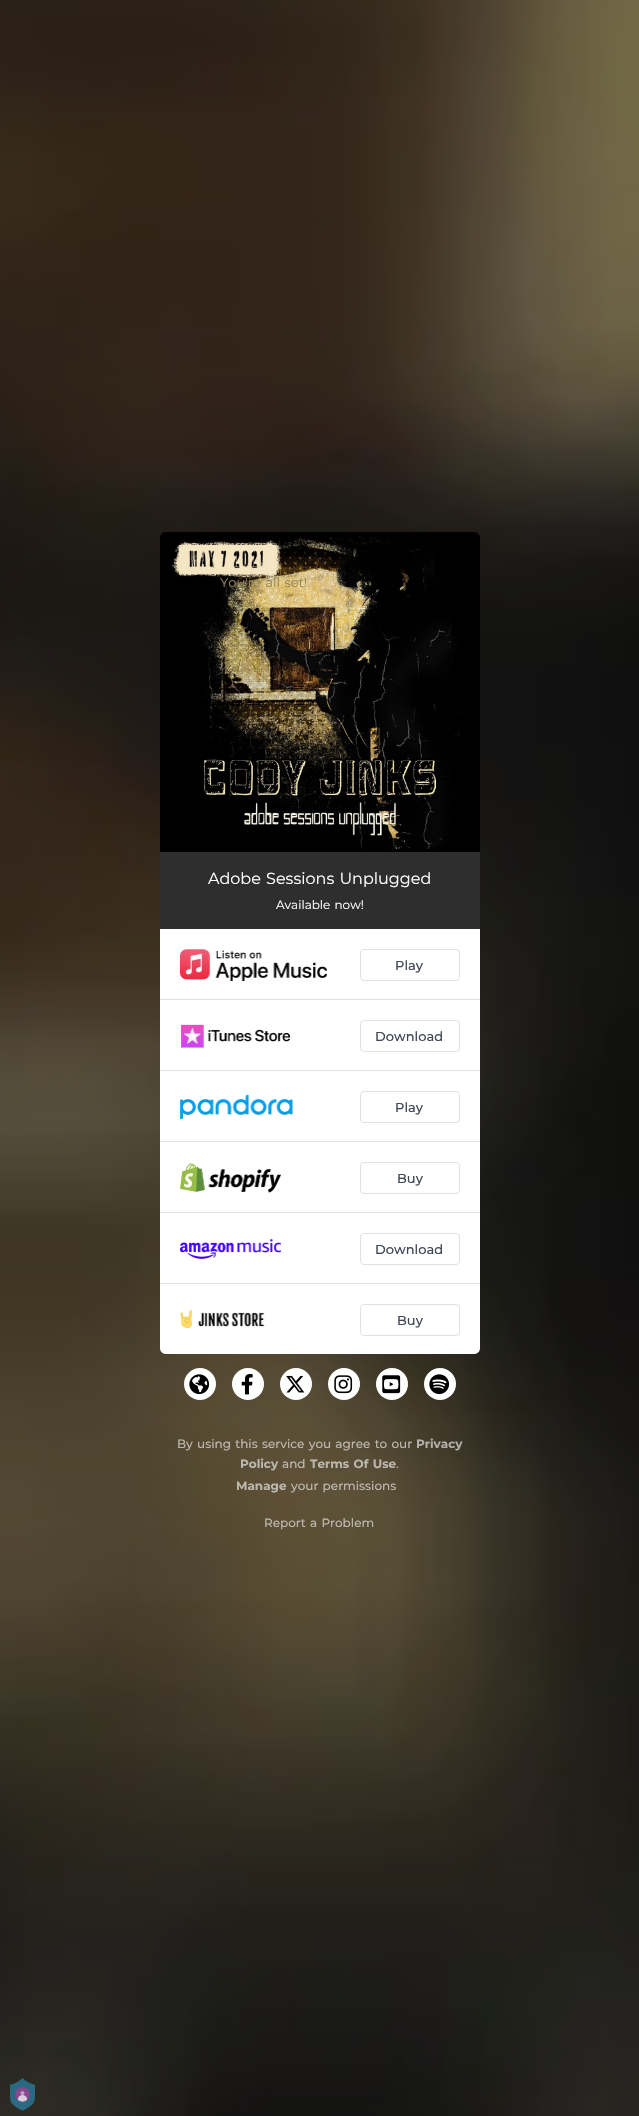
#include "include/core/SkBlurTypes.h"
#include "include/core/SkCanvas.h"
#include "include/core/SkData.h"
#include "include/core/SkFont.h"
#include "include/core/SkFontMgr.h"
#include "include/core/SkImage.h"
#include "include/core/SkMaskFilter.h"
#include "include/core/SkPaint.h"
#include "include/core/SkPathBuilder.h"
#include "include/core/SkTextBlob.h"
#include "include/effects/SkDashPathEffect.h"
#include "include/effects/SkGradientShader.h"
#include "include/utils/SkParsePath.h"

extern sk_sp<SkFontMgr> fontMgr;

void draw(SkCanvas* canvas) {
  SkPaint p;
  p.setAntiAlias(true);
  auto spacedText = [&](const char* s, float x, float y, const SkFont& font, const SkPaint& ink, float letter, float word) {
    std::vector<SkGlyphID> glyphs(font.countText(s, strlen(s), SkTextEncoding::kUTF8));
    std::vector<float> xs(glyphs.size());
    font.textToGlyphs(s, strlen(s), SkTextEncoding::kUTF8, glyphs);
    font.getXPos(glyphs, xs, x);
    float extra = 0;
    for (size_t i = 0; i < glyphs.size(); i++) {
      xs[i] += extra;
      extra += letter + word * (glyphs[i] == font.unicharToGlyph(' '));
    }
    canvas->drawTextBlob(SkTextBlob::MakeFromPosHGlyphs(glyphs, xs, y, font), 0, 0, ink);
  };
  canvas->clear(SK_ColorWHITE);
  canvas->drawImageRect(SkImages::DeferredFromEncodedData(SkData::MakeFromFileName("images/1.png")), SkRect::MakeLTRB(0, 0, 639, 2116), SkSamplingOptions());
  canvas->drawImageRect(SkImages::DeferredFromEncodedData(SkData::MakeFromFileName("images/2.png")), SkRect::MakeLTRB(160, 532, 480, 852), SkSamplingOptions());
  p.setColor(SkColorSetRGB(46, 46, 46));
  canvas->drawRect(SkRect::MakeLTRB(160, 852, 480, 929), p);
  p.setColor(SK_ColorWHITE);
  canvas->drawPath(SkPathBuilder().moveTo(160, 929).lineTo(480, 929).lineTo(480, 1348).cubicTo(480, 1351.5f, 477.5f, 1354, 474, 1354).lineTo(166, 1354).cubicTo(162.5f, 1354, 160, 1351.5f, 160, 1348).close().detach(), p);
  p.setColor(SkColorSetRGB(225, 225, 228));
  canvas->drawRect(SkRect::MakeLTRB(160, 999, 480, 1000), p);
  canvas->drawImageRect(SkImages::DeferredFromEncodedData(SkData::MakeFromFileName("images/3.png")), SkRect::MakeLTRB(180, 949, 327, 981), SkSamplingOptions());
  p.setStyle(SkPaint::kStroke_Style);
  p.setStrokeWidth(1);
  canvas->drawRoundRect(SkRect::MakeLTRB(360.5f, 949.5f, 459.5f, 980.5f), 3.5f, 3.5f, p);
  p.setStyle(SkPaint::kFill_Style);
  canvas->drawRect(SkRect::MakeLTRB(160, 1070, 480, 1071), p);
  canvas->drawImageRect(SkImages::DeferredFromEncodedData(SkData::MakeFromFileName("images/4.png")), SkRect::MakeLTRB(181, 1024, 291, 1048), SkSamplingOptions());
  p.setStyle(SkPaint::kStroke_Style);
  canvas->drawRoundRect(SkRect::MakeLTRB(360.5f, 1020.5f, 459.5f, 1051.5f), 3.5f, 3.5f, p);
  p.setStyle(SkPaint::kFill_Style);
  canvas->drawRect(SkRect::MakeLTRB(160, 1141, 480, 1142), p);
  canvas->drawImageRect(SkImages::DeferredFromEncodedData(SkData::MakeFromFileName("images/5.png")), SkRect::MakeLTRB(180, 1094, 294, 1120), SkSamplingOptions());
  p.setStyle(SkPaint::kStroke_Style);
  canvas->drawRoundRect(SkRect::MakeLTRB(360.5f, 1091.5f, 459.5f, 1122.5f), 3.5f, 3.5f, p);
  p.setStyle(SkPaint::kFill_Style);
  canvas->drawRect(SkRect::MakeLTRB(160, 1212, 480, 1213), p);
  canvas->drawImageRect(SkImages::DeferredFromEncodedData(SkData::MakeFromFileName("images/6.png")), SkRect::MakeLTRB(180, 1163, 281, 1193), SkSamplingOptions());
  p.setStyle(SkPaint::kStroke_Style);
  canvas->drawRoundRect(SkRect::MakeLTRB(360.5f, 1162.5f, 459.5f, 1193.5f), 3.5f, 3.5f, p);
  p.setStyle(SkPaint::kFill_Style);
  canvas->drawRect(SkRect::MakeLTRB(160, 1283, 480, 1284), p);
  canvas->drawImageRect(SkImages::DeferredFromEncodedData(SkData::MakeFromFileName("images/7.png")), SkRect::MakeLTRB(180, 1239, 281, 1259), SkSamplingOptions());
  p.setStyle(SkPaint::kStroke_Style);
  canvas->drawRoundRect(SkRect::MakeLTRB(360.5f, 1233.5f, 459.5f, 1264.5f), 3.5f, 3.5f, p);
  canvas->drawImageRect(SkImages::DeferredFromEncodedData(SkData::MakeFromFileName("images/8.png")), SkRect::MakeLTRB(180, 1310, 265, 1329), SkSamplingOptions());
  canvas->drawRoundRect(SkRect::MakeLTRB(360.5f, 1304.5f, 459.5f, 1335.5f), 3.5f, 3.5f, p);
  p.setStyle(SkPaint::kFill_Style);
  p.setColor(SK_ColorWHITE);
  canvas->drawCircle(200, 1384, 16, p);
  canvas->drawImageRect(SkImages::DeferredFromEncodedData(SkData::MakeFromFileName("images/9.png")), SkRect::MakeLTRB(189, 1374, 210, 1395), SkSamplingOptions());
  canvas->drawCircle(248, 1384, 16, p);
  canvas->drawImageRect(SkImages::DeferredFromEncodedData(SkData::MakeFromFileName("images/10.png")), SkRect::MakeLTRB(241, 1374, 253, 1395), SkSamplingOptions());
  canvas->drawCircle(296, 1384, 16, p);
  canvas->drawImageRect(SkImages::DeferredFromEncodedData(SkData::MakeFromFileName("images/11.png")), SkRect::MakeLTRB(286, 1375, 305, 1393), SkSamplingOptions());
  canvas->drawCircle(344, 1384, 16, p);
  canvas->drawImageRect(SkImages::DeferredFromEncodedData(SkData::MakeFromFileName("images/12.png")), SkRect::MakeLTRB(334, 1375, 353, 1394), SkSamplingOptions());
  canvas->drawCircle(392, 1384, 16, p);
  canvas->drawImageRect(SkImages::DeferredFromEncodedData(SkData::MakeFromFileName("images/13.png")), SkRect::MakeLTRB(382, 1375, 401, 1394), SkSamplingOptions());
  canvas->drawCircle(440, 1384, 16, p);
  canvas->drawImageRect(SkImages::DeferredFromEncodedData(SkData::MakeFromFileName("images/14.png")), SkRect::MakeLTRB(429, 1374, 450, 1395), SkSamplingOptions());
  canvas->drawImageRect(SkImages::DeferredFromEncodedData(SkData::MakeFromFileName("images/15.png")), SkRect::MakeLTRB(10, 2078, 35, 2111), SkSamplingOptions());
  SkFont font1(fontMgr->matchFamilyStyle("Montserrat", SkFontStyle::Normal()), 13);
  font1.setSubpixel(true);
  p.setColor(SkColorSetRGB(149, 133, 88));
  spacedText("You're all set!", 220, 587, font1, p, 0, 1);
  SkFont font2(fontMgr->matchFamilyStyle("Montserrat", SkFontStyle::Normal()), 16);
  font2.setSubpixel(true);
  p.setColor(SK_ColorWHITE);
  spacedText("Adobe Sessions Unplugged", 208, 884, font2, p, 0, 1);
  SkFont font3(fontMgr->matchFamilyStyle("Montserrat", SkFontStyle::Normal()), 12);
  font3.setSubpixel(true);
  spacedText("Available now!", 276, 909, font3, p, 0, 1);
  SkFont font4(fontMgr->matchFamilyStyle("Montserrat", SkFontStyle(500, SkFontStyle::kNormal_Width, SkFontStyle::kUpright_Slant)), 13);
  font4.setSubpixel(true);
  p.setColor(SkColorSetRGB(65, 71, 84));
  canvas->drawString("Play", 395, 970, font4, p);
  canvas->drawString("Download", 375, 1041, font4, p);
  canvas->drawString("Play", 395, 1112, font4, p);
  canvas->drawString("Buy", 397, 1183, font4, p);
  canvas->drawString("Download", 375, 1254, font4, p);
  canvas->drawString("Buy", 397, 1325, font4, p);
  SkFont font5(fontMgr->matchFamilyStyle("Montserrat", SkFontStyle(500, SkFontStyle::kNormal_Width, SkFontStyle::kUpright_Slant)), 12);
  font5.setSubpixel(true);
  p.setColor(SkColorSetRGB(188, 183, 174));
  spacedText("By using this service you agree to our", 177, 1448, font5, p, 0, 1);
  SkFont font6(fontMgr->matchFamilyStyle("Montserrat", SkFontStyle::Bold()), 12);
  font6.setSubpixel(true);
  p.setColor(SkColorSetRGB(179, 176, 169));
  canvas->drawString("Privacy", 416, 1448, font6, p);
  p.setColor(SkColorSetRGB(188, 183, 174));
  canvas->drawString("Policy", 240, 1468, font6, p);
  canvas->drawString("and", 282, 1468, font5, p);
  spacedText("Terms Of Use", 310, 1468, font6, p, 0, 1);
  canvas->drawString(".", 396, 1468, font5, p);
  canvas->drawString("Manage", 236, 1490, font6, p);
  spacedText("your permissions", 291, 1490, font5, p, 0, 1);
  spacedText("Report a Problem", 264, 1527, font5, p, 0, 1);
}
